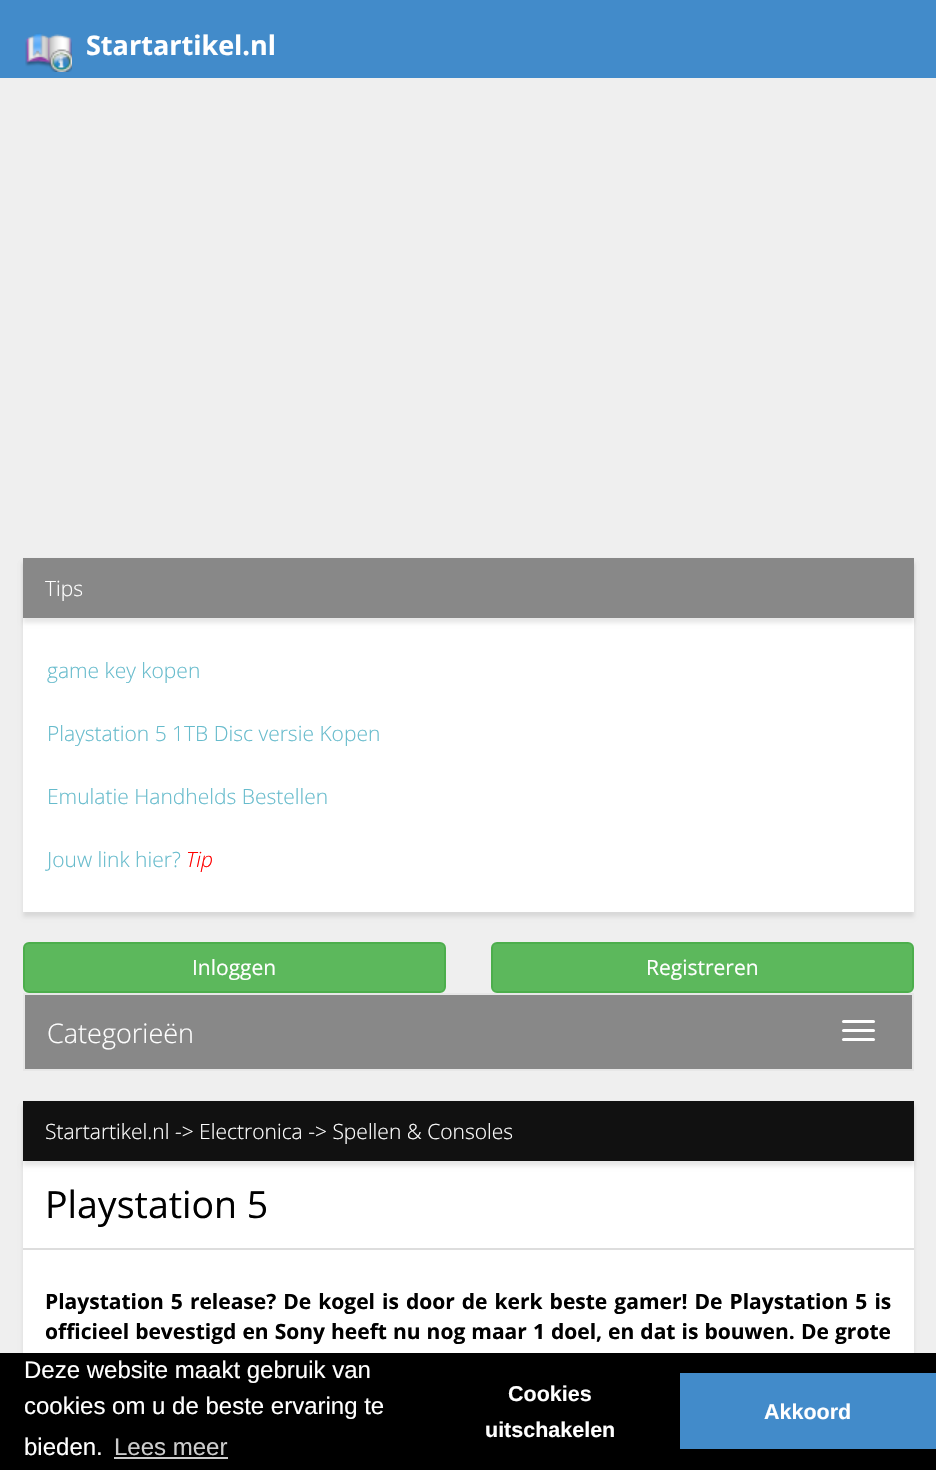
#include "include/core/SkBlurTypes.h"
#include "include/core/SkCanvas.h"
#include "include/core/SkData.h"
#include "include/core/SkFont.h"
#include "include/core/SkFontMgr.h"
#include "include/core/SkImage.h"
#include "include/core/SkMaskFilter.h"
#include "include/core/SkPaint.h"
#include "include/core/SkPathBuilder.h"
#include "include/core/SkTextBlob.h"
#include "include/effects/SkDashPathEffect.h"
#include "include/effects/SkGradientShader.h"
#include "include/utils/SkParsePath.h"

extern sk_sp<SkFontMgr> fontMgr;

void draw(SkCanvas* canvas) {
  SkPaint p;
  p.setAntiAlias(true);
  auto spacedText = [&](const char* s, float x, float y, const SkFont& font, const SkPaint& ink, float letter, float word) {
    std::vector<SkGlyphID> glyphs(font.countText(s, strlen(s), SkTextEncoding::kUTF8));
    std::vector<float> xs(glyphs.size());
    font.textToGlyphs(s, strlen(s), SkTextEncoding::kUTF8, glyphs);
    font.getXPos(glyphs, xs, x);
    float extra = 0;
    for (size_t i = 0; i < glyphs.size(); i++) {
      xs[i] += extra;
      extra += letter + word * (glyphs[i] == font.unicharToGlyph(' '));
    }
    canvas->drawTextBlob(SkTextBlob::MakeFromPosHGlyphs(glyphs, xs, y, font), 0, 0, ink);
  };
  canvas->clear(SkColorSetRGB(239, 239, 239));
  p.setColor(SkColorSetRGB(66, 139, 202));
  canvas->drawRect(SkRect::MakeLTRB(0, 0, 936, 78), p);
  canvas->drawImageRect(SkImages::DeferredFromEncodedData(SkData::MakeFromFileName("images/1.png")), SkRect::MakeLTRB(25, 33, 72, 72), SkSamplingOptions());
  p.setColor(SkColorSetARGB(23, 0, 0, 0));
  p.setMaskFilter(SkMaskFilter::MakeBlur(kNormal_SkBlurStyle, 2));
  canvas->drawRect(SkRect::MakeLTRB(23, 563, 914, 917), p);
  p.setMaskFilter(nullptr);
  p.setColor(SK_ColorWHITE);
  canvas->drawRect(SkRect::MakeLTRB(23, 618, 914, 912), p);
  p.setColor(SkColorSetARGB(23, 0, 0, 0));
  p.setMaskFilter(SkMaskFilter::MakeBlur(kNormal_SkBlurStyle, 2));
  canvas->drawRect(SkRect::MakeLTRB(23, 563, 914, 623), p);
  p.setMaskFilter(nullptr);
  p.setColor(SkColorSetRGB(136, 136, 136));
  canvas->drawRect(SkRect::MakeLTRB(23, 558, 914, 618), p);
  p.setColor(SkColorSetRGB(92, 184, 92));
  canvas->drawRoundRect(SkRect::MakeLTRB(24, 943, 445, 992), 5, 5, p);
  p.setStyle(SkPaint::kStroke_Style);
  p.setStrokeWidth(2);
  p.setColor(SkColorSetRGB(76, 174, 76));
  canvas->drawRoundRect(SkRect::MakeLTRB(24, 943, 445, 992), 5, 5, p);
  p.setStyle(SkPaint::kFill_Style);
  p.setColor(SkColorSetRGB(92, 184, 92));
  canvas->drawRoundRect(SkRect::MakeLTRB(492, 943, 913, 992), 5, 5, p);
  p.setStyle(SkPaint::kStroke_Style);
  p.setColor(SkColorSetRGB(76, 174, 76));
  canvas->drawRoundRect(SkRect::MakeLTRB(492, 943, 913, 992), 5, 5, p);
  p.setStyle(SkPaint::kFill_Style);
  p.setColor(SkColorSetRGB(136, 136, 136));
  canvas->drawRect(SkRect::MakeLTRB(24, 994, 913, 1070), p);
  p.setStyle(SkPaint::kStroke_Style);
  p.setColor(SkColorSetRGB(231, 231, 231));
  canvas->drawRect(SkRect::MakeLTRB(24, 994, 913, 1070), p);
  p.setStyle(SkPaint::kFill_Style);
  p.setColor(SK_ColorWHITE);
  canvas->drawRoundRect(SkRect::MakeLTRB(842, 1020, 875, 1023), 1.5f, 1.5f, p);
  canvas->drawRoundRect(SkRect::MakeLTRB(842, 1029, 875, 1032), 1.5f, 1.5f, p);
  canvas->drawRoundRect(SkRect::MakeLTRB(842, 1038, 875, 1041), 1.5f, 1.5f, p);
  p.setColor(SkColorSetARGB(23, 0, 0, 0));
  p.setMaskFilter(SkMaskFilter::MakeBlur(kNormal_SkBlurStyle, 2));
  canvas->drawRect(SkRect::MakeLTRB(23, 1106, 914, 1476), p);
  p.setMaskFilter(nullptr);
  p.setColor(SK_ColorWHITE);
  canvas->drawRect(SkRect::MakeLTRB(23, 1161, 914, 1353), p);
  p.setColor(SkColorSetARGB(23, 0, 0, 0));
  p.setMaskFilter(SkMaskFilter::MakeBlur(kNormal_SkBlurStyle, 2));
  canvas->drawRect(SkRect::MakeLTRB(23, 1106, 914, 1166), p);
  p.setMaskFilter(nullptr);
  p.setColor(SkColorSetRGB(17, 17, 17));
  canvas->drawRect(SkRect::MakeLTRB(23, 1101, 914, 1161), p);
  p.setColor(SkColorSetRGB(221, 221, 221));
  canvas->drawRect(SkRect::MakeLTRB(23, 1248, 914, 1250), p);
  p.setColor(SK_ColorBLACK);
  canvas->drawRect(SkRect::MakeLTRB(0, 1353, 936, 1470), p);
  p.setColor(SkColorSetRGB(204, 204, 204));
  canvas->drawRect(SkRect::MakeLTRB(114, 1457, 228, 1459), p);
  p.setColor(SkColorSetRGB(66, 139, 202));
  canvas->drawRect(SkRect::MakeLTRB(680, 1373, 936, 1449), p);
  SkFont font1(fontMgr->matchFamilyStyle("Open Sans", SkFontStyle::Bold()), 27);
  font1.setSubpixel(true);
  p.setColor(SK_ColorWHITE);
  canvas->drawString("Startartikel.nl", 86, 55, font1, p);
  SkFont font2(fontMgr->matchFamilyStyle("Open Sans", SkFontStyle(300, SkFontStyle::kNormal_Width, SkFontStyle::kUpright_Slant)), 21);
  font2.setSubpixel(true);
  canvas->drawString("Tips", 45, 596, font2, p);
  p.setColor(SkColorSetRGB(102, 187, 204));
  canvas->drawString("game key kopen", 47, 678, font2, p);
  canvas->drawString("Playstation 5 1TB Disc versie Kopen", 47, 741, font2, p);
  canvas->drawString("Emulatie Handhelds Bestellen", 47, 804, font2, p);
  canvas->drawString("Jouw link hier?", 47, 867, font2, p);
  SkFont font3(fontMgr->matchFamilyStyle("Open Sans", SkFontStyle(300, SkFontStyle::kNormal_Width, SkFontStyle::kItalic_Slant)), 21);
  font3.setSubpixel(true);
  p.setColor(SkColorSetRGB(255, 0, 0));
  canvas->drawString("Tip", 186, 867, font3, p);
  SkFont font4(fontMgr->matchFamilyStyle("Open Sans", SkFontStyle::Normal()), 21);
  font4.setSubpixel(true);
  p.setColor(SK_ColorWHITE);
  canvas->drawString("Inloggen", 192, 975, font4, p);
  canvas->drawString("Registreren", 646, 975, font4, p);
  SkFont font5(fontMgr->matchFamilyStyle("Open Sans", SkFontStyle(300, SkFontStyle::kNormal_Width, SkFontStyle::kUpright_Slant)), 27);
  font5.setSubpixel(true);
  canvas->drawString("Categorieën", 47, 1043, font5, p);
  canvas->drawString("Startartikel.nl -> Electronica -> Spellen & Consoles", 45, 1139, font2, p);
  SkFont font6(fontMgr->matchFamilyStyle("Open Sans", SkFontStyle::Normal()), 37.5f);
  font6.setSubpixel(true);
  p.setColor(SK_ColorBLACK);
  canvas->drawString("Playstation 5", 45, 1218, font6, p);
  SkFont font7(fontMgr->matchFamilyStyle("Open Sans", SkFontStyle::Bold()), 21);
  font7.setSubpixel(true);
  spacedText("Playstation 5 release? De kogel is door de kerk beste gamer! De Playstation 5 is", 45, 1309, font7, p, 0, 1.6f);
  spacedText("officieel bevestigd en Sony heeft nu nog maar 1 doel, en dat is bouwen.", 45, 1339, font7, p, 0, 0.6f);
  spacedText("De grote", 801, 1339, font7, p, 0, 0.6f);
  SkFont font8(fontMgr->matchFamilyStyle("Liberation Sans", SkFontStyle::Normal()), 24);
  font8.setSubpixel(true);
  p.setColor(SK_ColorWHITE);
  canvas->drawString("Deze website maakt gebruik van", 24, 1378, font8, p);
  canvas->drawString("cookies om u de beste ervaring te", 24, 1414, font8, p);
  canvas->drawString("bieden.", 24, 1455, font8, p);
  p.setColor(SkColorSetRGB(204, 204, 204));
  canvas->drawString("Lees meer", 114, 1455, font8, p);
  SkFont font9(fontMgr->matchFamilyStyle("Liberation Sans", SkFontStyle::Bold()), 21.5f);
  font9.setSubpixel(true);
  p.setColor(SK_ColorWHITE);
  canvas->drawString("Cookies", 508, 1401, font9, p);
  canvas->drawString("uitschakelen", 485, 1437, font9, p);
  canvas->drawString("Akkoord", 764, 1419, font9, p);
}
